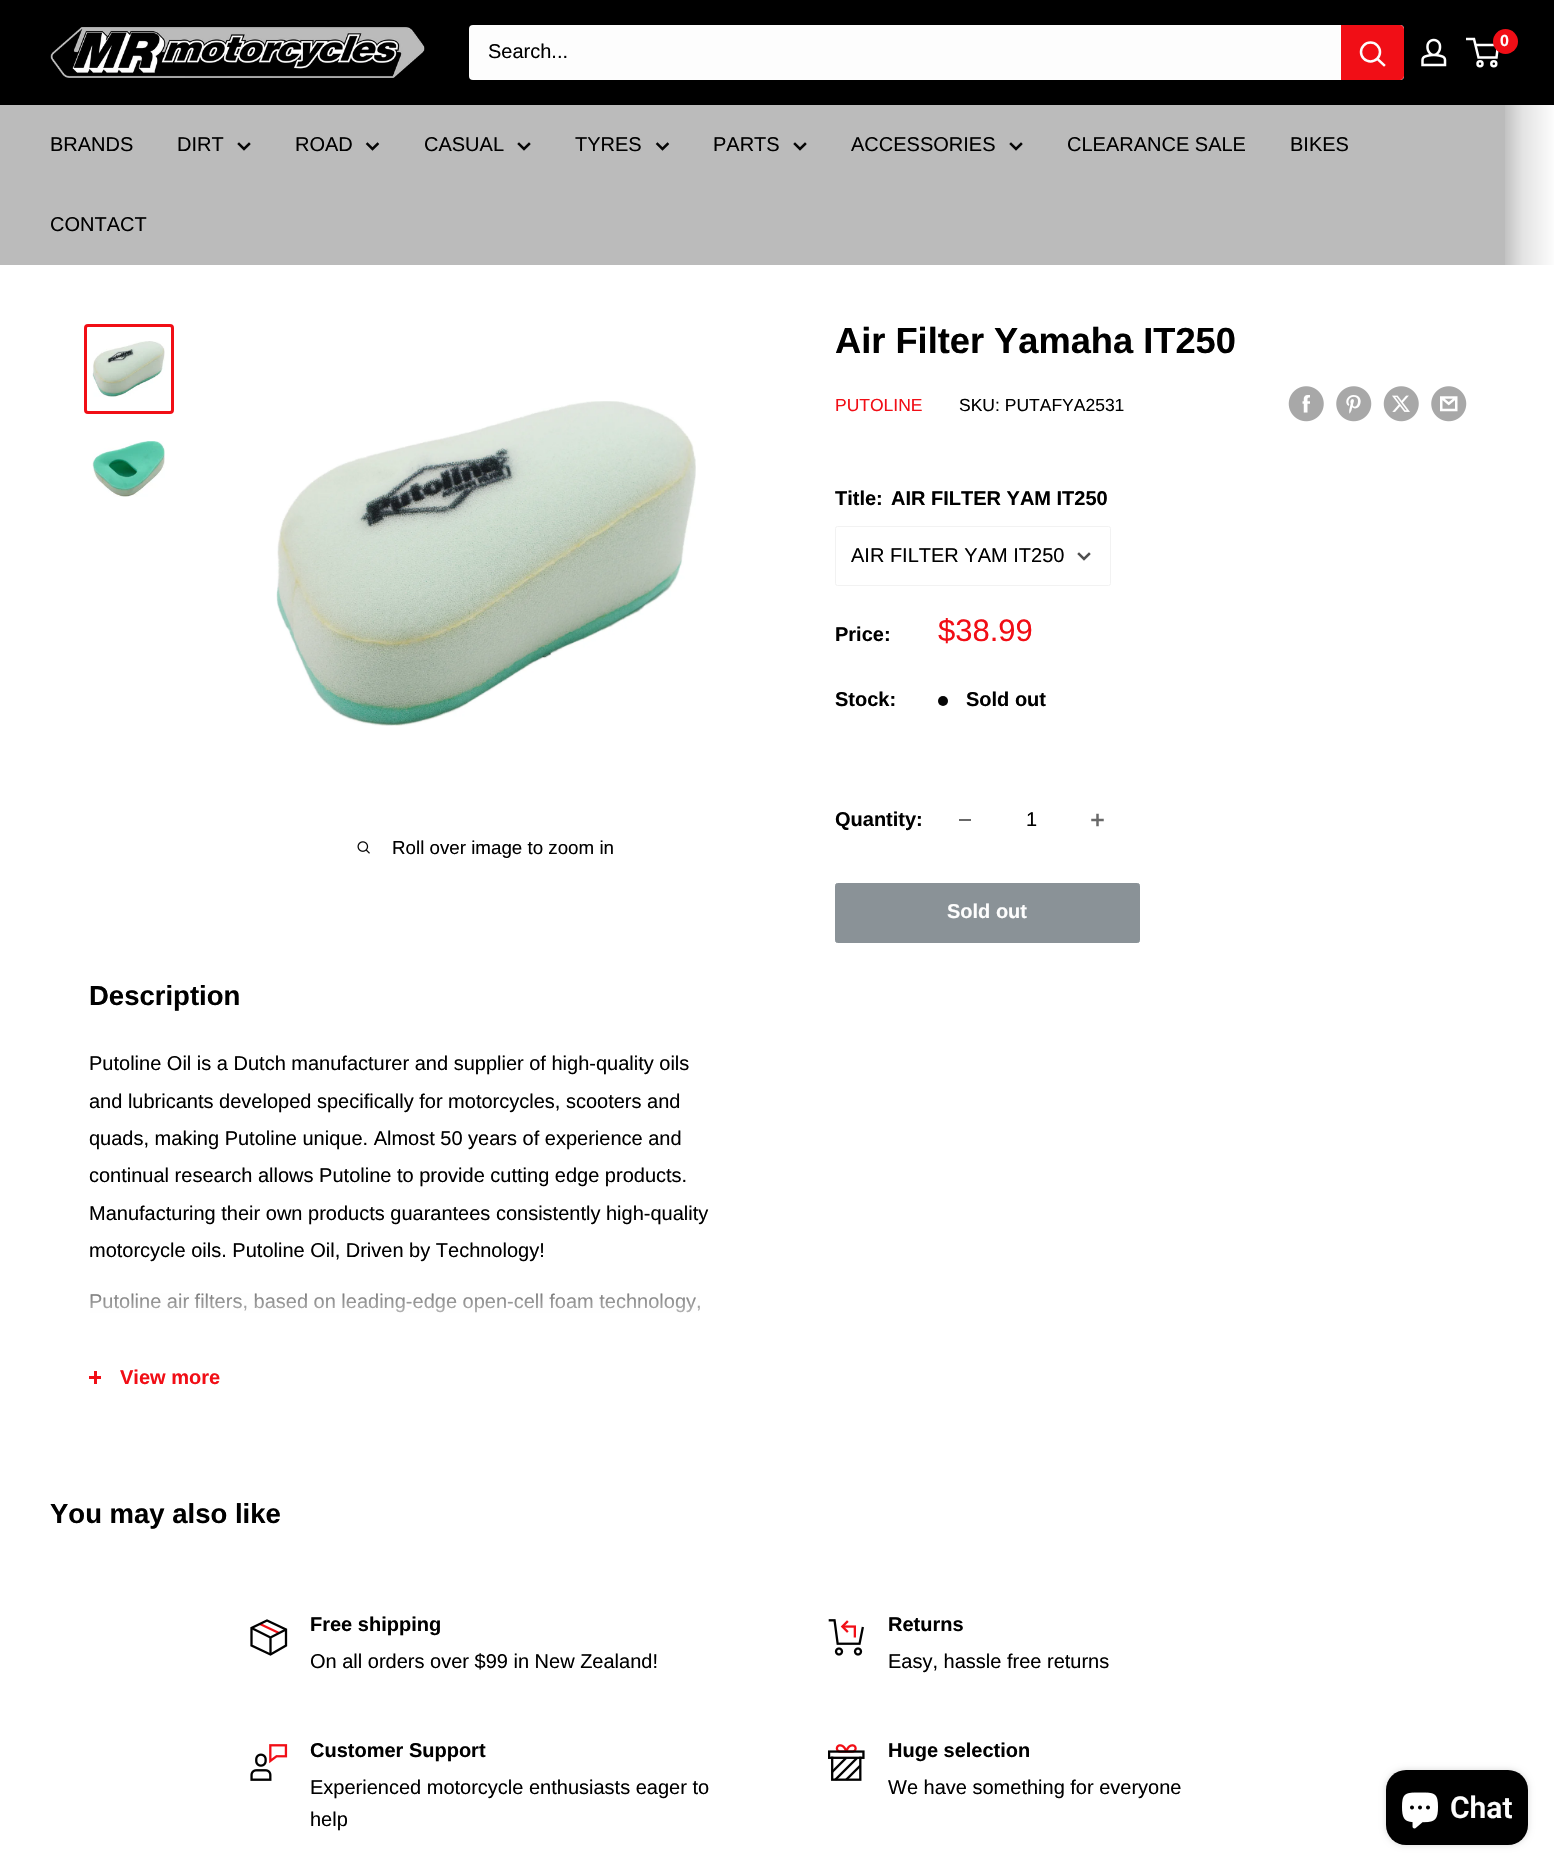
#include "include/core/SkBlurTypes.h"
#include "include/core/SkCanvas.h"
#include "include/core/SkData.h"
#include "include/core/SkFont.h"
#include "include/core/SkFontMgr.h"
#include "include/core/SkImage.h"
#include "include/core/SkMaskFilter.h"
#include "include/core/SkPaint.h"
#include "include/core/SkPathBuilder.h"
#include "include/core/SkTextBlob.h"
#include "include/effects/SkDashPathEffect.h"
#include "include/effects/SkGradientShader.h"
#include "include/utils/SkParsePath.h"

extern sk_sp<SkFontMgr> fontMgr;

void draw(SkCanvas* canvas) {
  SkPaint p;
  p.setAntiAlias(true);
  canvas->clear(SK_ColorWHITE);
  p.setColor(SK_ColorBLACK);
  canvas->drawRect(SkRect::MakeLTRB(0, 0, 1554, 105), p);
  canvas->drawImageRect(SkImages::DeferredFromEncodedData(SkData::MakeFromFileName("images/1.png")), SkRect::MakeLTRB(50, 27, 425, 78), SkSamplingOptions());
  canvas->drawImageRect(SkImages::DeferredFromEncodedData(SkData::MakeFromFileName("images/2.png")), SkRect::MakeLTRB(1421, 38, 1447, 67), SkSamplingOptions());
  p.setStyle(SkPaint::kStroke_Style);
  p.setStrokeWidth(2.5f);
  p.setColor(SK_ColorWHITE);
  canvas->drawCircle(1480, 63.8f, 2.5f, p);
  canvas->drawCircle(1493.8f, 63.8f, 2.5f, p);
  canvas->drawPath(SkPathBuilder().moveTo(1475.5f, 45).lineTo(1498, 45).lineTo(1496.5f, 57.5f).lineTo(1478.5f, 57.5f).lineTo(1474, 39).lineTo(1466, 39).detach(), p);
  p.setStyle(SkPaint::kFill_Style);
  p.setColor(SkColorSetRGB(241, 14, 22));
  canvas->drawCircle(1505.5f, 41.5f, 12.5f, p);
  p.setColor(SkColorSetRGB(253, 253, 253));
  canvas->drawRoundRect(SkRect::MakeLTRB(469, 25, 1404, 80), 4, 4, p);
  p.setColor(SkColorSetRGB(241, 14, 22));
  canvas->drawPath(SkPathBuilder().moveTo(1341, 25).lineTo(1400, 25).cubicTo(1402, 25, 1404, 27, 1404, 29).lineTo(1404, 76).cubicTo(1404, 78, 1402, 80, 1400, 80).lineTo(1341, 80).close().detach(), p);
  p.setStyle(SkPaint::kStroke_Style);
  p.setStrokeCap(SkPaint::kSquare_Cap);
  p.setColor(SkColorSetRGB(253, 253, 253));
  canvas->drawPath(SkPathBuilder().moveTo(1384, 65).lineTo(1377.5f, 59).detach(), p);
  p.setStrokeCap(SkPaint::kButt_Cap);
  canvas->drawCircle(1370.5f, 52, 9.5f, p);
  p.setStyle(SkPaint::kFill_Style);
  p.setColor(SkColorSetRGB(187, 187, 187));
  canvas->drawRect(SkRect::MakeLTRB(0, 105, 1505, 265), p);
  p.setStyle(SkPaint::kStroke_Style);
  p.setStrokeCap(SkPaint::kSquare_Cap);
  p.setColor(SkColorSetRGB(5, 5, 5));
  canvas->drawPath(SkPathBuilder().moveTo(249, 144).lineTo(244, 149).lineTo(239, 144).detach(), p);
  canvas->drawPath(SkPathBuilder().moveTo(377.5f, 144).lineTo(372.5f, 149).lineTo(367.5f, 144).detach(), p);
  canvas->drawPath(SkPathBuilder().moveTo(529, 144).lineTo(524, 149).lineTo(519, 144).detach(), p);
  canvas->drawPath(SkPathBuilder().moveTo(667.5f, 144).lineTo(662.5f, 149).lineTo(657.5f, 144).detach(), p);
  canvas->drawPath(SkPathBuilder().moveTo(805, 144).lineTo(800, 149).lineTo(795, 144).detach(), p);
  canvas->drawPath(SkPathBuilder().moveTo(1021, 144).lineTo(1016, 149).lineTo(1011, 144).detach(), p);
  p.setStyle(SkPaint::kFill_Style);
  {
    const SkColor colors[] = {SkColorSetRGB(194, 194, 194), SkColorSetRGB(227, 227, 227), SkColorSetRGB(253, 253, 253)};
    const float stops[] = {0, 0.35f, 1};
    const SkPoint ends[] = {{1505, 185}, {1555, 185}};
    p.setShader(SkGradientShader::MakeLinear(ends, colors, stops, 3, SkTileMode::kClamp));
    p.setAlpha(255);
  }
  canvas->drawRect(SkRect::MakeLTRB(1505, 105, 1554, 265), p);
  p.setStyle(SkPaint::kStroke_Style);
  p.setStrokeWidth(3);
  p.setStrokeCap(SkPaint::kButt_Cap);
  p.setShader(nullptr);
  p.setColor(SkColorSetRGB(241, 14, 22));
  canvas->drawRoundRect(SkRect::MakeLTRB(85.5f, 325.5f, 172.5f, 412.5f), 2.5f, 2.5f, p);
  canvas->drawImageRect(SkImages::DeferredFromEncodedData(SkData::MakeFromFileName("images/3.png")), SkRect::MakeLTRB(92, 341, 165, 397), SkSamplingOptions());
  canvas->drawImageRect(SkImages::DeferredFromEncodedData(SkData::MakeFromFileName("images/4.png")), SkRect::MakeLTRB(92, 441, 165, 497), SkSamplingOptions());
  canvas->drawImageRect(SkImages::DeferredFromEncodedData(SkData::MakeFromFileName("images/5.png")), SkRect::MakeLTRB(276, 401, 696, 726), SkSamplingOptions());
  canvas->drawImageRect(SkImages::DeferredFromEncodedData(SkData::MakeFromFileName("images/6.png")), SkRect::MakeLTRB(357, 841, 370, 854), SkSamplingOptions());
  canvas->drawImageRect(SkImages::DeferredFromEncodedData(SkData::MakeFromFileName("images/7.png")), SkRect::MakeLTRB(1288, 386, 1324, 422), SkSamplingOptions());
  canvas->drawImageRect(SkImages::DeferredFromEncodedData(SkData::MakeFromFileName("images/8.png")), SkRect::MakeLTRB(1336, 386, 1372, 422), SkSamplingOptions());
  canvas->drawImageRect(SkImages::DeferredFromEncodedData(SkData::MakeFromFileName("images/9.png")), SkRect::MakeLTRB(1383, 386, 1419, 422), SkSamplingOptions());
  canvas->drawImageRect(SkImages::DeferredFromEncodedData(SkData::MakeFromFileName("images/10.png")), SkRect::MakeLTRB(1431, 386, 1467, 422), SkSamplingOptions());
  p.setStrokeWidth(1);
  p.setColor(SkColorSetRGB(242, 242, 242));
  canvas->drawRoundRect(SkRect::MakeLTRB(835.5f, 526.5f, 1110.5f, 585.5f), 2, 2, p);
  p.setStrokeWidth(2.5f);
  p.setStrokeCap(SkPaint::kSquare_Cap);
  p.setColor(SkColorSetRGB(79, 79, 79));
  canvas->drawPath(SkPathBuilder().moveTo(1089, 554).lineTo(1084, 559).lineTo(1079, 554).detach(), p);
  p.setStyle(SkPaint::kFill_Style);
  p.setColor(SkColorSetRGB(5, 5, 5));
  canvas->drawCircle(943, 701, 5, p);
  p.setColor(SkColorSetRGB(104, 104, 104));
  canvas->drawRect(SkRect::MakeLTRB(959, 819, 971, 821), p);
  canvas->drawImageRect(SkImages::DeferredFromEncodedData(SkData::MakeFromFileName("images/11.png")), SkRect::MakeLTRB(1091, 813, 1104, 827), SkSamplingOptions());
  p.setColor(SkColorSetRGB(138, 146, 151));
  canvas->drawRoundRect(SkRect::MakeLTRB(835.5f, 883.5f, 1139.5f, 942.5f), 2, 2, p);
  p.setStyle(SkPaint::kStroke_Style);
  p.setStrokeWidth(1);
  p.setStrokeCap(SkPaint::kButt_Cap);
  canvas->drawRoundRect(SkRect::MakeLTRB(835.5f, 883.5f, 1139.5f, 942.5f), 2, 2, p);
  p.setStyle(SkPaint::kFill_Style);
  p.setColor(SkColorSetRGB(241, 14, 22));
  canvas->drawRect(SkRect::MakeLTRB(94, 1371, 97, 1384), p);
  canvas->drawRect(SkRect::MakeLTRB(89, 1376, 101, 1379), p);
  p.setStyle(SkPaint::kStroke_Style);
  p.setStrokeWidth(2.3f);
  canvas->drawPath(SkPathBuilder().moveTo(260, 1624).lineTo(279, 1633).detach(), p);
  p.setColor(SK_ColorBLACK);
  canvas->drawPath(SkPathBuilder().moveTo(286, 1629.5f).lineTo(270.5f, 1637.5f).lineTo(251.5f, 1628).moveTo(270.5f, 1637.5f).lineTo(270.5f, 1654.5f).detach(), p);
  p.setStrokeCap(SkPaint::kSquare_Cap);
  canvas->drawPath(SkPathBuilder().moveTo(286, 1629.5f).lineTo(286, 1645.5f).lineTo(270.5f, 1654.5f).lineTo(251.5f, 1645.5f).lineTo(251.5f, 1628).lineTo(267, 1620.5f).close().detach(), p);
  canvas->drawImageRect(SkImages::DeferredFromEncodedData(SkData::MakeFromFileName("images/12.png")), SkRect::MakeLTRB(828, 1619, 864, 1656), SkSamplingOptions());
  canvas->drawImageRect(SkImages::DeferredFromEncodedData(SkData::MakeFromFileName("images/13.png")), SkRect::MakeLTRB(250, 1744, 288, 1781), SkSamplingOptions());
  canvas->drawImageRect(SkImages::DeferredFromEncodedData(SkData::MakeFromFileName("images/14.png")), SkRect::MakeLTRB(828, 1744, 865, 1781), SkSamplingOptions());
  p.setStyle(SkPaint::kFill_Style);
  p.setColor(SkColorSetARGB(38, 0, 0, 0));
  p.setMaskFilter(SkMaskFilter::MakeBlur(kNormal_SkBlurStyle, 3));
  canvas->drawRoundRect(SkRect::MakeLTRB(1386, 1770, 1528, 1845), 20, 20, p);
  p.setMaskFilter(nullptr);
  p.setColor(SK_ColorBLACK);
  canvas->drawRoundRect(SkRect::MakeLTRB(1386, 1770, 1528, 1845), 20, 20, p);
  canvas->drawImageRect(SkImages::DeferredFromEncodedData(SkData::MakeFromFileName("images/15.png")), SkRect::MakeLTRB(1402, 1792, 1438, 1829), SkSamplingOptions());
  SkFont font1(fontMgr->matchFamilyStyle("Liberation Sans", SkFontStyle::Bold()), 16);
  font1.setSubpixel(true);
  p.setColor(SkColorSetRGB(253, 253, 253));
  canvas->drawString("0", 1500, 46, font1, p);
  SkFont font2(fontMgr->matchFamilyStyle("Liberation Sans", SkFontStyle::Normal()), 20);
  font2.setSubpixel(true);
  p.setColor(SK_ColorBLACK);
  canvas->drawString("Search...", 488, 58, font2, p);
  canvas->drawString("BRANDS", 50, 151, font2, p);
  canvas->drawString("DIRT", 177, 151, font2, p);
  canvas->drawString("ROAD", 295, 151, font2, p);
  canvas->drawString("CASUAL", 424, 151, font2, p);
  canvas->drawString("TYRES", 575, 151, font2, p);
  canvas->drawString("PARTS", 713, 151, font2, p);
  canvas->drawString("ACCESSORIES", 851, 151, font2, p);
  canvas->drawString("CLEARANCE SALE", 1067, 151, font2, p);
  canvas->drawString("BIKES", 1290, 151, font2, p);
  canvas->drawString("CONTACT", 50, 231, font2, p);
  SkFont font3(fontMgr->matchFamilyStyle("Liberation Sans", SkFontStyle::Normal()), 18.75f);
  font3.setSubpixel(true);
  canvas->drawString("Roll over image to zoom in", 392, 854, font3, p);
  SkFont font4(fontMgr->matchFamilyStyle("Liberation Sans", SkFontStyle::Bold()), 36.25f);
  font4.setSubpixel(true);
  canvas->drawString("Air Filter Yamaha IT250", 835, 353, font4, p);
  SkFont font5(fontMgr->matchFamilyStyle("Liberation Sans", SkFontStyle::Normal()), 17.5f);
  font5.setSubpixel(true);
  p.setColor(SkColorSetRGB(241, 14, 22));
  canvas->drawString("PUTOLINE", 835, 411, font5, p);
  p.setColor(SK_ColorBLACK);
  canvas->drawString("SKU: PUTAFYA2531", 959, 411, font5, p);
  SkFont font6(fontMgr->matchFamilyStyle("Liberation Sans", SkFontStyle::Bold()), 20);
  font6.setSubpixel(true);
  canvas->drawString("Title:", 835, 505, font6, p);
  canvas->drawString("AIR FILTER YAM IT250", 891, 505, font6, p);
  canvas->drawString("AIR FILTER YAM IT250", 851, 562, font2, p);
  canvas->drawString("Price:", 835, 641, font6, p);
  SkFont font7(fontMgr->matchFamilyStyle("Liberation Sans", SkFontStyle::Normal()), 31);
  font7.setSubpixel(true);
  p.setColor(SkColorSetRGB(241, 14, 22));
  canvas->drawString("$38.99", 938, 641, font7, p);
  p.setColor(SK_ColorBLACK);
  canvas->drawString("Stock:", 835, 706, font6, p);
  canvas->drawString("Sold out", 966, 706, font6, p);
  canvas->drawString("Quantity:", 835, 826, font6, p);
  canvas->drawString("1", 1026, 826, font2, p);
  p.setColor(SkColorSetRGB(253, 253, 253));
  canvas->drawString("Sold out", 947, 918, font6, p);
  SkFont font8(fontMgr->matchFamilyStyle("Liberation Sans", SkFontStyle::Bold()), 27.5f);
  font8.setSubpixel(true);
  p.setColor(SK_ColorBLACK);
  canvas->drawString("Description", 89, 1005, font8, p);
  canvas->drawString("Putoline Oil is a Dutch manufacturer and supplier of high-quality oils", 89, 1070, font2, p);
  canvas->drawString("and lubricants developed specifically for motorcycles, scooters and", 89, 1108, font2, p);
  canvas->drawString("quads, making Putoline unique. Almost 50 years of experience and", 89, 1145, font2, p);
  canvas->drawString("continual research allows Putoline to provide cutting edge products.", 89, 1182, font2, p);
  canvas->drawString("Manufacturing their own products guarantees consistently high-quality", 89, 1220, font2, p);
  canvas->drawString("motorcycle oils. Putoline Oil, Driven by Technology!", 89, 1257, font2, p);
  canvas->drawString("Putoline air filters, based on leading-edge open-cell foam technology,", 89, 1308, font2, p);
  {
    const SkColor colors[] = {SkColorSetARGB(0, 253, 253, 253), SkColorSetARGB(102, 253, 253, 253), SkColorSetRGB(253, 253, 253)};
    const float stops[] = {0, 0.15f, 1};
    const SkPoint ends[] = {{404, 1276}, {404, 1339}};
    p.setShader(SkGradientShader::MakeLinear(ends, colors, stops, 3, SkTileMode::kClamp));
    p.setAlpha(255);
  }
  canvas->drawRect(SkRect::MakeLTRB(90, 1293, 700, 1313), p);
  p.setShader(nullptr);
  p.setColor(SkColorSetRGB(241, 14, 22));
  canvas->drawString("View more", 120, 1384, font6, p);
  p.setColor(SK_ColorBLACK);
  canvas->drawString("You may also like", 50, 1523, font8, p);
  canvas->drawString("Free shipping", 310, 1631, font6, p);
  canvas->drawString("On all orders over $99 in New Zealand!", 310, 1668, font2, p);
  canvas->drawString("Returns", 888, 1631, font6, p);
  canvas->drawString("Easy, hassle free returns", 888, 1668, font2, p);
  canvas->drawString("Customer Support", 310, 1757, font6, p);
  canvas->drawString("Experienced motorcycle enthusiasts eager to", 310, 1794, font2, p);
  canvas->drawString("help", 310, 1826, font2, p);
  canvas->drawString("Huge selection", 888, 1757, font6, p);
  canvas->drawString("We have something for everyone", 888, 1794, font2, p);
  SkFont font9(fontMgr->matchFamilyStyle("Roboto", SkFontStyle(600, SkFontStyle::kNormal_Width, SkFontStyle::kUpright_Slant)), 30);
  font9.setSubpixel(true);
  p.setColor(SkColorSetRGB(253, 253, 253));
  canvas->drawString("Chat", 1450, 1818, font9, p);
}
